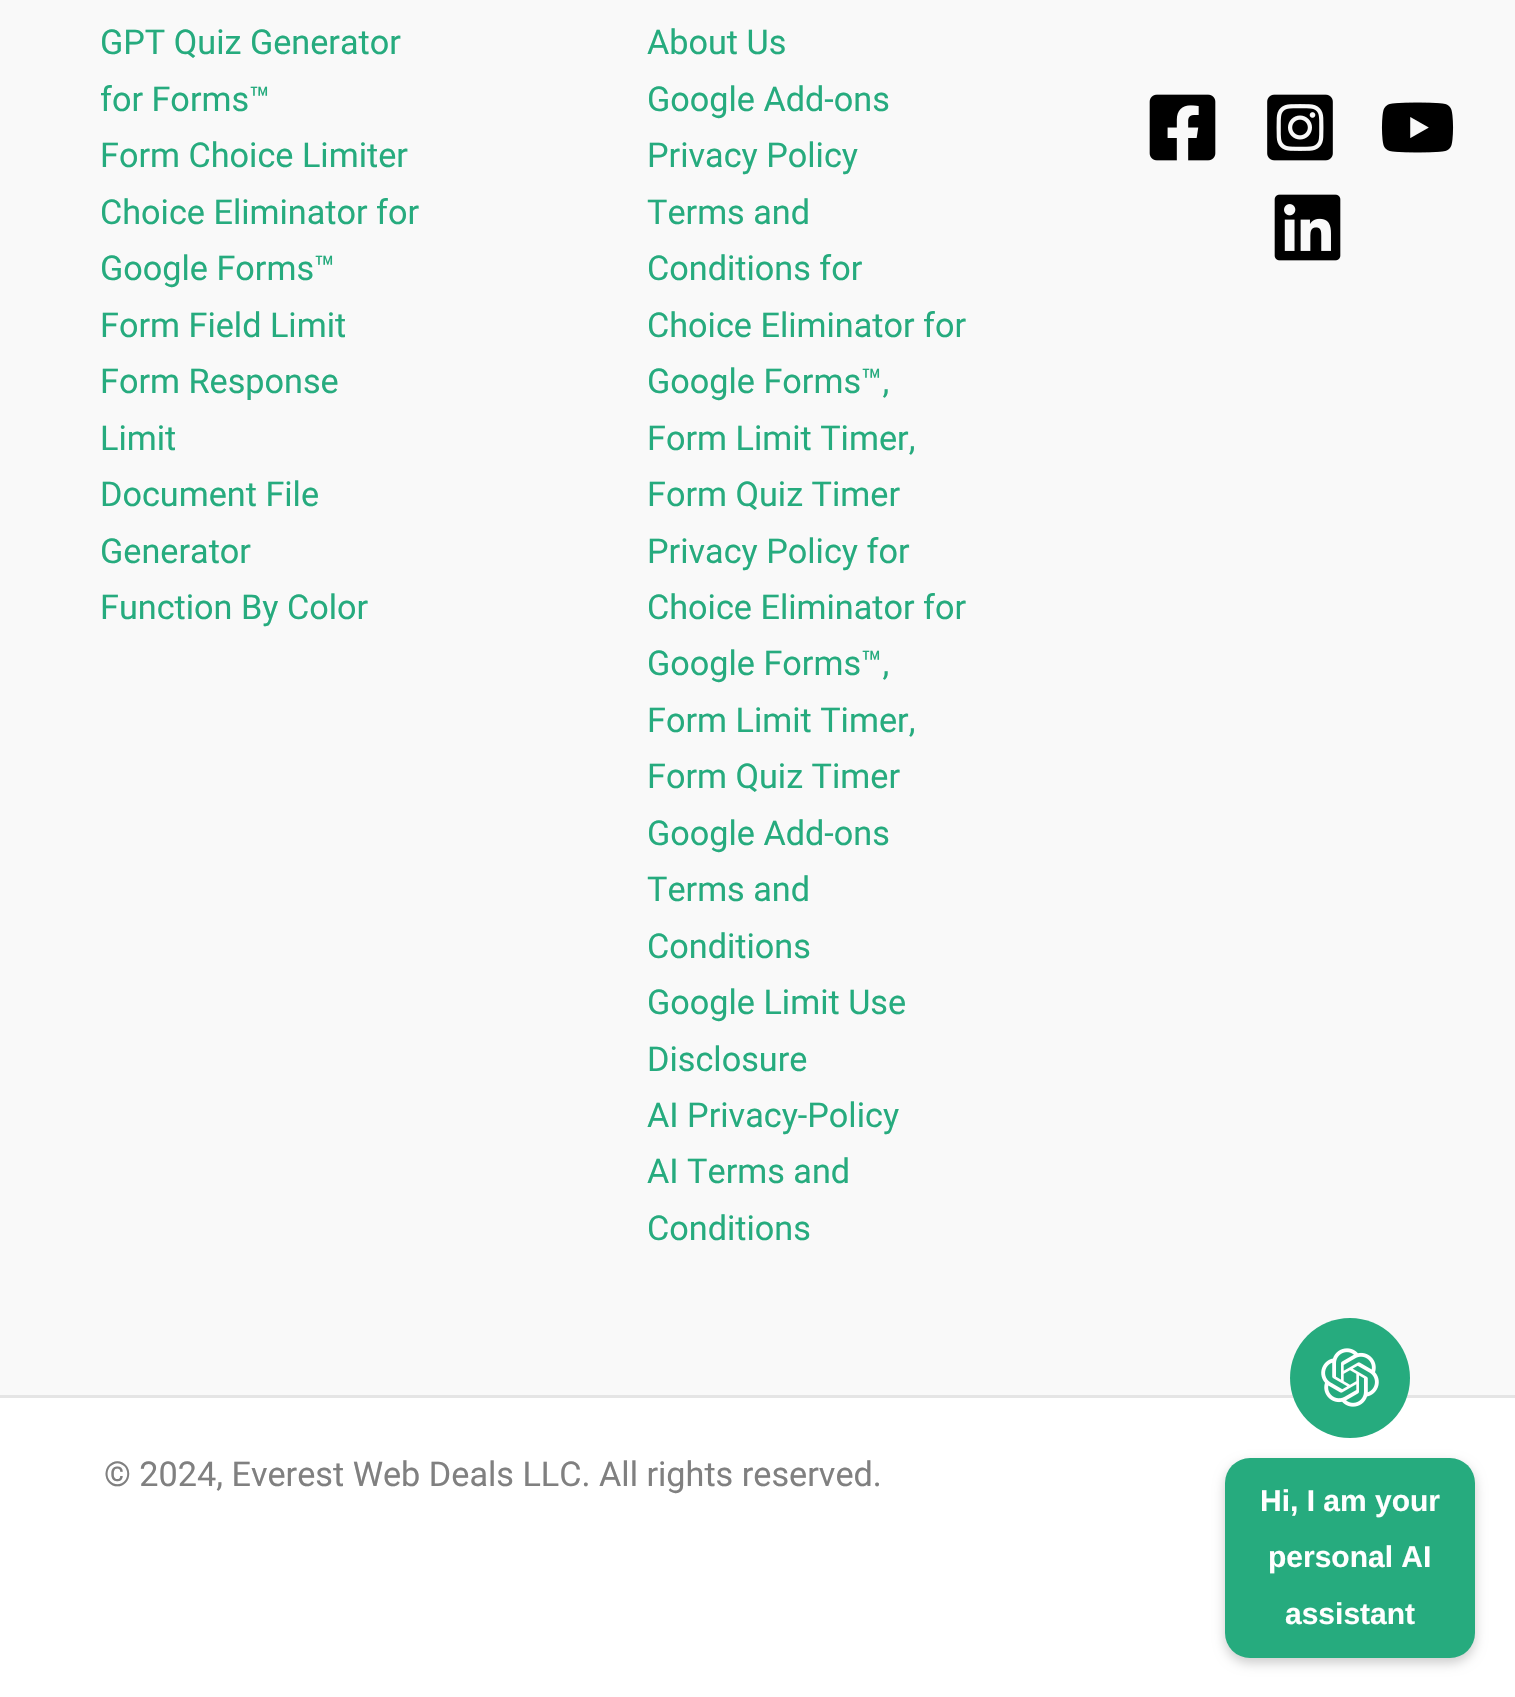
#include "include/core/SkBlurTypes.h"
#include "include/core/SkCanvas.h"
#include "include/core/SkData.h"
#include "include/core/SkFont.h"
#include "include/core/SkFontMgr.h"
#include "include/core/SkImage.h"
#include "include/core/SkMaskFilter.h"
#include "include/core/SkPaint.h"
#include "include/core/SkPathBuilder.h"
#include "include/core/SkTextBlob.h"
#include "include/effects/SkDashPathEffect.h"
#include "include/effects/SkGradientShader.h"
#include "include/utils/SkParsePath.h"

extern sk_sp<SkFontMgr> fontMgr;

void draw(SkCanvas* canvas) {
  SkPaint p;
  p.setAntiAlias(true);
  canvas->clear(SkColorSetRGB(249, 249, 249));
  canvas->drawImageRect(SkImages::DeferredFromEncodedData(SkData::MakeFromFileName("images/1.png")), SkRect::MakeLTRB(1149, 94, 1216, 161), SkSamplingOptions());
  canvas->drawImageRect(SkImages::DeferredFromEncodedData(SkData::MakeFromFileName("images/2.png")), SkRect::MakeLTRB(1267, 94, 1333, 161), SkSamplingOptions());
  canvas->drawImageRect(SkImages::DeferredFromEncodedData(SkData::MakeFromFileName("images/3.png")), SkRect::MakeLTRB(1381, 102, 1454, 153), SkSamplingOptions());
  canvas->drawImageRect(SkImages::DeferredFromEncodedData(SkData::MakeFromFileName("images/4.png")), SkRect::MakeLTRB(1274, 194, 1341, 261), SkSamplingOptions());
  p.setColor(SK_ColorWHITE);
  canvas->drawRect(SkRect::MakeLTRB(0, 1398, 1515, 1697), p);
  p.setColor(SkColorSetRGB(229, 229, 229));
  canvas->drawRect(SkRect::MakeLTRB(0, 1395, 1515, 1398), p);
  p.setColor(SkColorSetRGB(38, 171, 126));
  canvas->drawCircle(1350, 1378, 60, p);
  canvas->drawImageRect(SkImages::DeferredFromEncodedData(SkData::MakeFromFileName("images/5.png")), SkRect::MakeLTRB(1321, 1348, 1379, 1407), SkSamplingOptions());
  p.setColor(SkColorSetARGB(51, 0, 0, 0));
  p.setMaskFilter(SkMaskFilter::MakeBlur(kNormal_SkBlurStyle, 6));
  canvas->drawRoundRect(SkRect::MakeLTRB(1225, 1463, 1475, 1663), 25, 25, p);
  p.setMaskFilter(nullptr);
  p.setColor(SkColorSetRGB(38, 171, 126));
  canvas->drawRoundRect(SkRect::MakeLTRB(1225, 1458, 1475, 1658), 25, 25, p);
  SkFont font1(fontMgr->matchFamilyStyle("Roboto", SkFontStyle::Normal()), 34.2f);
  font1.setSubpixel(true);
  canvas->drawString("GPT Quiz Generator", 100, 54, font1, p);
  canvas->drawString("for Forms™", 100, 111, font1, p);
  canvas->drawString("Form Choice Limiter", 100, 167, font1, p);
  canvas->drawString("Choice Eliminator for", 100, 224, font1, p);
  canvas->drawString("Google Forms™", 100, 280, font1, p);
  canvas->drawString("Form Field Limit", 100, 337, font1, p);
  canvas->drawString("Form Response", 100, 393, font1, p);
  canvas->drawString("Limit", 100, 450, font1, p);
  canvas->drawString("Document File", 100, 506, font1, p);
  canvas->drawString("Generator", 100, 563, font1, p);
  canvas->drawString("Function By Color", 100, 619, font1, p);
  canvas->drawString("About Us", 647, 54, font1, p);
  canvas->drawString("Google Add-ons", 647, 111, font1, p);
  canvas->drawString("Privacy Policy", 647, 167, font1, p);
  canvas->drawString("Terms and", 647, 224, font1, p);
  canvas->drawString("Conditions for", 647, 280, font1, p);
  canvas->drawString("Choice Eliminator for", 647, 337, font1, p);
  canvas->drawString("Google Forms™,", 647, 393, font1, p);
  canvas->drawString("Form Limit Timer,", 647, 450, font1, p);
  canvas->drawString("Form Quiz Timer", 647, 506, font1, p);
  canvas->drawString("Privacy Policy for", 647, 563, font1, p);
  canvas->drawString("Choice Eliminator for", 647, 619, font1, p);
  canvas->drawString("Google Forms™,", 647, 675, font1, p);
  canvas->drawString("Form Limit Timer,", 647, 732, font1, p);
  canvas->drawString("Form Quiz Timer", 647, 788, font1, p);
  canvas->drawString("Google Add-ons", 647, 845, font1, p);
  canvas->drawString("Terms and", 647, 901, font1, p);
  canvas->drawString("Conditions", 647, 958, font1, p);
  canvas->drawString("Google Limit Use", 647, 1014, font1, p);
  canvas->drawString("Disclosure", 647, 1071, font1, p);
  canvas->drawString("AI Privacy-Policy", 647, 1127, font1, p);
  canvas->drawString("AI Terms and", 647, 1183, font1, p);
  canvas->drawString("Conditions", 647, 1240, font1, p);
  p.setColor(SkColorSetRGB(128, 128, 128));
  canvas->drawString("© 2024, Everest Web Deals LLC. All rights reserved.", 104, 1486, font1, p);
  SkFont font2(fontMgr->matchFamilyStyle("Liberation Sans", SkFontStyle::Bold()), 30);
  font2.setSubpixel(true);
  p.setColor(SK_ColorWHITE);
  canvas->drawString("Hi, I am your", 1260, 1511, font2, p);
  canvas->drawString("personal AI", 1268, 1567, font2, p);
  canvas->drawString("assistant", 1285, 1624, font2, p);
}
